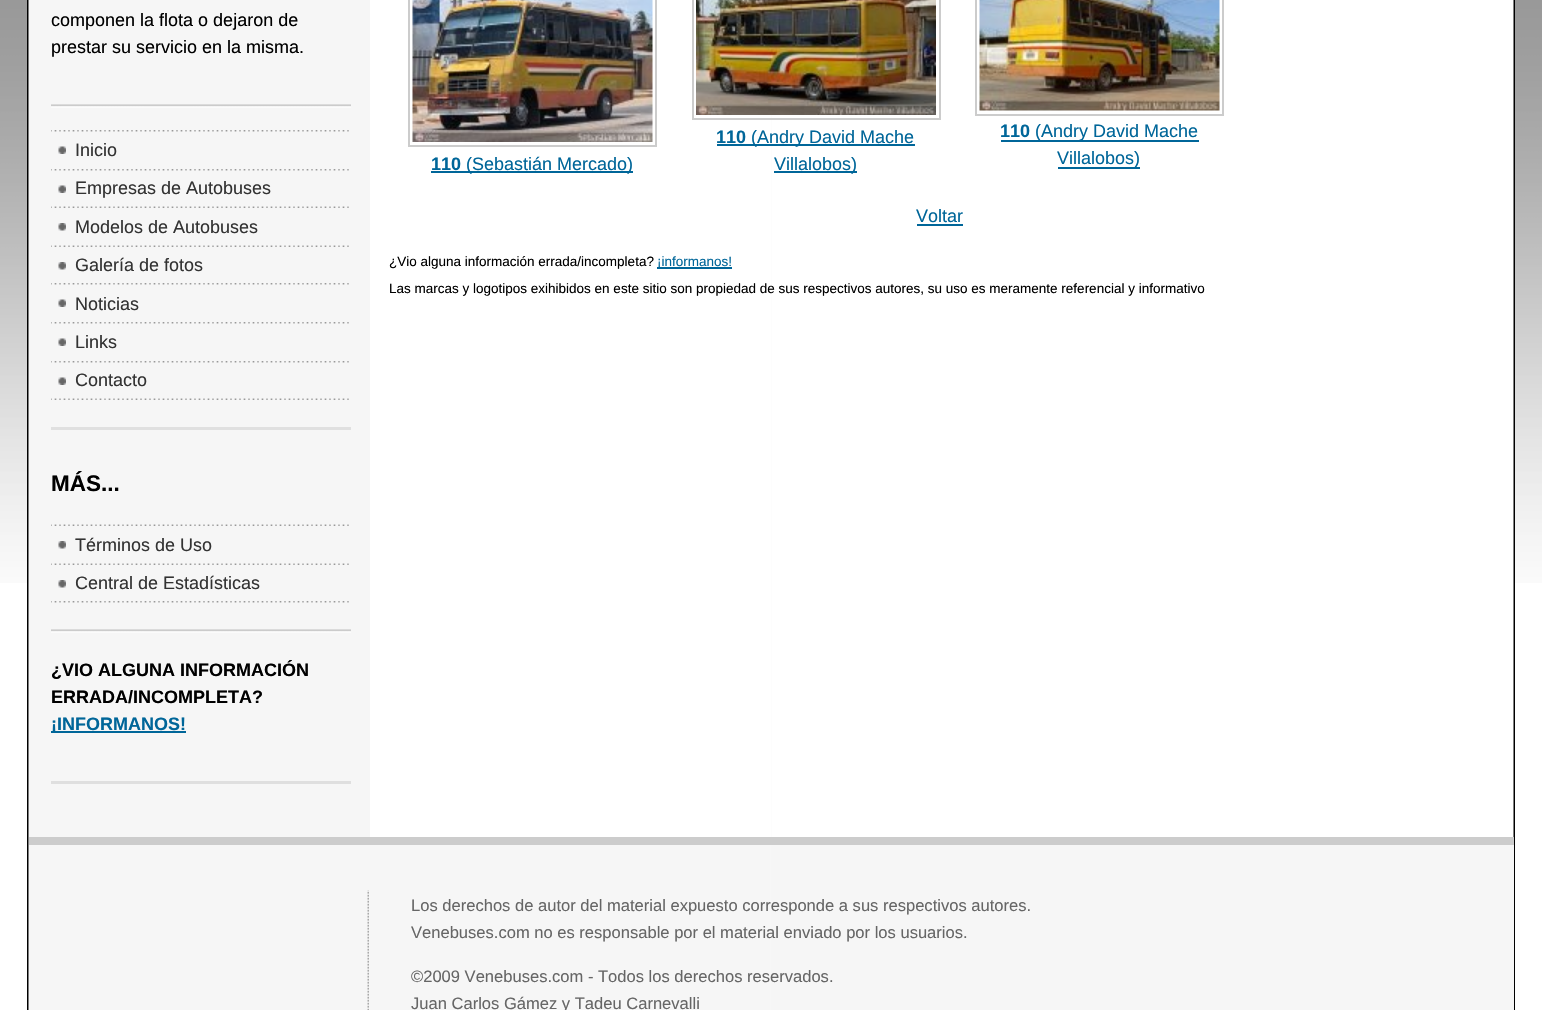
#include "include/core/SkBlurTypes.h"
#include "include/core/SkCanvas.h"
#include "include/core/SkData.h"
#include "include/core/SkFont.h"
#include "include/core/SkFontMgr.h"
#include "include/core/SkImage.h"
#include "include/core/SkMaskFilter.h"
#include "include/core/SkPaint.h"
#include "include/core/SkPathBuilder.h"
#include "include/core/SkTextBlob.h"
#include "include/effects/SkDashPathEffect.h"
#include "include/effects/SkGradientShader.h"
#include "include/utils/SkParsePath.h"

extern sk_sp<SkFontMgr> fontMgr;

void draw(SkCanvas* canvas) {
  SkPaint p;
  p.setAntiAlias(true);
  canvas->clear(SK_ColorWHITE);
  canvas->drawImageRect(SkImages::DeferredFromEncodedData(SkData::MakeFromFileName("images/1.png")), SkRect::MakeLTRB(0, 0, 1542, 583), SkSamplingOptions());
  p.setStyle(SkPaint::kStroke_Style);
  p.setStrokeWidth(2);
  p.setColor(SK_ColorBLACK);
  canvas->drawRect(SkRect::MakeLTRB(28, -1, 1514, 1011), p);
  canvas->drawImageRect(SkImages::DeferredFromEncodedData(SkData::MakeFromFileName("images/2.png")), SkRect::MakeLTRB(28, 0, 1514, 1010), SkSamplingOptions());
  p.setStyle(SkPaint::kFill_Style);
  p.setColor(SK_ColorWHITE);
  canvas->drawRect(SkRect::MakeLTRB(370, 0, 771, 837), p);
  canvas->drawImageRect(SkImages::DeferredFromEncodedData(SkData::MakeFromFileName("images/3.png")), SkRect::MakeLTRB(51, 104, 351, 108), SkSamplingOptions());
  p.setColor(SkColorSetRGB(224, 224, 224));
  canvas->drawRect(SkRect::MakeLTRB(51, 427, 351, 430), p);
  canvas->drawImageRect(SkImages::DeferredFromEncodedData(SkData::MakeFromFileName("images/4.png")), SkRect::MakeLTRB(51, 130, 349, 132), SkSamplingOptions());
  canvas->drawImageRect(SkImages::DeferredFromEncodedData(SkData::MakeFromFileName("images/4.png")), SkRect::MakeLTRB(51, 169, 349, 171), SkSamplingOptions());
  canvas->drawImageRect(SkImages::DeferredFromEncodedData(SkData::MakeFromFileName("images/5.png")), SkRect::MakeLTRB(58, 146, 66, 154), SkSamplingOptions());
  canvas->drawImageRect(SkImages::DeferredFromEncodedData(SkData::MakeFromFileName("images/6.png")), SkRect::MakeLTRB(51, 206, 349, 208), SkSamplingOptions());
  canvas->drawImageRect(SkImages::DeferredFromEncodedData(SkData::MakeFromFileName("images/5.png")), SkRect::MakeLTRB(58, 185, 66, 193), SkSamplingOptions());
  canvas->drawImageRect(SkImages::DeferredFromEncodedData(SkData::MakeFromFileName("images/6.png")), SkRect::MakeLTRB(51, 245, 349, 247), SkSamplingOptions());
  canvas->drawImageRect(SkImages::DeferredFromEncodedData(SkData::MakeFromFileName("images/7.png")), SkRect::MakeLTRB(58, 223, 66, 231), SkSamplingOptions());
  canvas->drawImageRect(SkImages::DeferredFromEncodedData(SkData::MakeFromFileName("images/4.png")), SkRect::MakeLTRB(51, 283, 349, 285), SkSamplingOptions());
  canvas->drawImageRect(SkImages::DeferredFromEncodedData(SkData::MakeFromFileName("images/7.png")), SkRect::MakeLTRB(58, 262, 66, 270), SkSamplingOptions());
  canvas->drawImageRect(SkImages::DeferredFromEncodedData(SkData::MakeFromFileName("images/4.png")), SkRect::MakeLTRB(51, 322, 349, 324), SkSamplingOptions());
  canvas->drawImageRect(SkImages::DeferredFromEncodedData(SkData::MakeFromFileName("images/5.png")), SkRect::MakeLTRB(58, 299, 66, 307), SkSamplingOptions());
  canvas->drawImageRect(SkImages::DeferredFromEncodedData(SkData::MakeFromFileName("images/4.png")), SkRect::MakeLTRB(51, 361, 349, 363), SkSamplingOptions());
  canvas->drawImageRect(SkImages::DeferredFromEncodedData(SkData::MakeFromFileName("images/5.png")), SkRect::MakeLTRB(58, 338, 66, 346), SkSamplingOptions());
  canvas->drawImageRect(SkImages::DeferredFromEncodedData(SkData::MakeFromFileName("images/6.png")), SkRect::MakeLTRB(51, 398, 349, 400), SkSamplingOptions());
  canvas->drawImageRect(SkImages::DeferredFromEncodedData(SkData::MakeFromFileName("images/5.png")), SkRect::MakeLTRB(58, 377, 66, 385), SkSamplingOptions());
  canvas->drawImageRect(SkImages::DeferredFromEncodedData(SkData::MakeFromFileName("images/8.png")), SkRect::MakeLTRB(51, 629, 351, 633), SkSamplingOptions());
  canvas->drawImageRect(SkImages::DeferredFromEncodedData(SkData::MakeFromFileName("images/6.png")), SkRect::MakeLTRB(51, 524, 349, 526), SkSamplingOptions());
  canvas->drawImageRect(SkImages::DeferredFromEncodedData(SkData::MakeFromFileName("images/6.png")), SkRect::MakeLTRB(51, 563, 349, 565), SkSamplingOptions());
  canvas->drawImageRect(SkImages::DeferredFromEncodedData(SkData::MakeFromFileName("images/7.png")), SkRect::MakeLTRB(58, 541, 66, 549), SkSamplingOptions());
  canvas->drawImageRect(SkImages::DeferredFromEncodedData(SkData::MakeFromFileName("images/4.png")), SkRect::MakeLTRB(51, 601, 349, 603), SkSamplingOptions());
  canvas->drawImageRect(SkImages::DeferredFromEncodedData(SkData::MakeFromFileName("images/7.png")), SkRect::MakeLTRB(58, 580, 66, 588), SkSamplingOptions());
  p.setColor(SkColorSetRGB(223, 223, 223));
  canvas->drawRect(SkRect::MakeLTRB(51, 781, 351, 784), p);
  p.setColor(SkColorSetRGB(0, 102, 153));
  canvas->drawRect(SkRect::MakeLTRB(51, 731, 186, 733), p);
  p.setStyle(SkPaint::kStroke_Style);
  p.setColor(SkColorSetRGB(204, 204, 204));
  canvas->drawRect(SkRect::MakeLTRB(409, -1, 656, 146), p);
  canvas->drawImageRect(SkImages::DeferredFromEncodedData(SkData::MakeFromFileName("images/9.png")), SkRect::MakeLTRB(412, 0, 653, 142), SkSamplingOptions());
  p.setStyle(SkPaint::kFill_Style);
  p.setColor(SkColorSetRGB(0, 102, 153));
  canvas->drawRect(SkRect::MakeLTRB(431, 171, 633, 173), p);
  p.setStyle(SkPaint::kStroke_Style);
  p.setColor(SkColorSetRGB(204, 204, 204));
  canvas->drawRect(SkRect::MakeLTRB(693, -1, 940, 119), p);
  canvas->drawImageRect(SkImages::DeferredFromEncodedData(SkData::MakeFromFileName("images/10.png")), SkRect::MakeLTRB(696, 0, 936, 115), SkSamplingOptions());
  p.setStyle(SkPaint::kFill_Style);
  p.setColor(SkColorSetRGB(0, 102, 153));
  canvas->drawRect(SkRect::MakeLTRB(717, 144, 915, 146), p);
  canvas->drawRect(SkRect::MakeLTRB(774, 171, 857, 173), p);
  p.setStyle(SkPaint::kStroke_Style);
  p.setColor(SkColorSetRGB(204, 204, 204));
  canvas->drawRect(SkRect::MakeLTRB(976, -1, 1223, 115), p);
  canvas->drawImageRect(SkImages::DeferredFromEncodedData(SkData::MakeFromFileName("images/11.png")), SkRect::MakeLTRB(979, 0, 1220, 111), SkSamplingOptions());
  p.setStyle(SkPaint::kFill_Style);
  p.setColor(SkColorSetRGB(0, 102, 153));
  canvas->drawRect(SkRect::MakeLTRB(1001, 140, 1199, 142), p);
  canvas->drawRect(SkRect::MakeLTRB(1058, 167, 1140, 169), p);
  canvas->drawRect(SkRect::MakeLTRB(917, 224, 963, 226), p);
  canvas->drawRect(SkRect::MakeLTRB(657, 267, 732, 269), p);
  p.setColor(SkColorSetRGB(246, 246, 246));
  canvas->drawRect(SkRect::MakeLTRB(771, 845, 1514, 1010), p);
  p.setColor(SkColorSetRGB(204, 204, 204));
  canvas->drawRect(SkRect::MakeLTRB(29, 837, 1514, 845), p);
  canvas->drawImageRect(SkImages::DeferredFromEncodedData(SkData::MakeFromFileName("images/12.png")), SkRect::MakeLTRB(367, 890, 369, 1010), SkSamplingOptions());
  SkFont font1(fontMgr->matchFamilyStyle("Liberation Sans", SkFontStyle::Normal()), 18);
  font1.setSubpixel(true);
  p.setColor(SK_ColorBLACK);
  canvas->drawString("componen la flota o dejaron de", 51, 26, font1, p);
  canvas->drawString("prestar su servicio en la misma.", 51, 53, font1, p);
  p.setColor(SkColorSetRGB(51, 51, 51));
  canvas->drawString("Inicio", 75, 156, font1, p);
  canvas->drawString("Empresas de Autobuses", 75, 194, font1, p);
  canvas->drawString("Modelos de Autobuses", 75, 233, font1, p);
  canvas->drawString("Galería de fotos", 75, 271, font1, p);
  canvas->drawString("Noticias", 75, 310, font1, p);
  canvas->drawString("Links", 75, 348, font1, p);
  canvas->drawString("Contacto", 75, 386, font1, p);
  SkFont font2(fontMgr->matchFamilyStyle("Liberation Sans", SkFontStyle::Bold()), 22.5f);
  font2.setSubpixel(true);
  p.setColor(SK_ColorBLACK);
  canvas->drawString("MÁS...", 51, 491, font2, p);
  p.setColor(SkColorSetRGB(51, 51, 51));
  canvas->drawString("Términos de Uso", 75, 551, font1, p);
  canvas->drawString("Central de Estadísticas", 75, 589, font1, p);
  SkFont font3(fontMgr->matchFamilyStyle("Liberation Sans", SkFontStyle::Bold()), 18);
  font3.setSubpixel(true);
  p.setColor(SK_ColorBLACK);
  canvas->drawString("¿VIO ALGUNA INFORMACIÓN", 51, 676, font3, p);
  canvas->drawString("ERRADA/INCOMPLETA?", 51, 703, font3, p);
  p.setColor(SkColorSetRGB(0, 102, 153));
  canvas->drawString("¡INFORMANOS!", 51, 730, font3, p);
  canvas->drawString("110", 431, 170, font3, p);
  canvas->drawString("(Sebastián Mercado)", 466, 170, font1, p);
  canvas->drawString("110", 716, 143, font3, p);
  canvas->drawString("(Andry David Mache", 751, 143, font1, p);
  canvas->drawString("Villalobos)", 774, 170, font1, p);
  canvas->drawString("110", 1000, 137, font3, p);
  canvas->drawString("(Andry David Mache", 1035, 137, font1, p);
  canvas->drawString("Villalobos)", 1057, 164, font1, p);
  canvas->drawString("Voltar", 916, 222, font1, p);
  SkFont font4(fontMgr->matchFamilyStyle("Liberation Sans", SkFontStyle::Normal()), 13.5f);
  font4.setSubpixel(true);
  p.setColor(SK_ColorBLACK);
  canvas->drawString("¿Vio alguna información errada/incompleta?", 389, 266, font4, p);
  p.setColor(SkColorSetRGB(0, 102, 153));
  canvas->drawString("¡informanos!", 657, 266, font4, p);
  p.setColor(SK_ColorBLACK);
  canvas->drawString("Las marcas y logotipos exihibidos en este sitio son propiedad de sus respectivos autores, su uso es meramente referencial y informativo", 389, 293, font4, p);
  SkFont font5(fontMgr->matchFamilyStyle("Liberation Sans", SkFontStyle::Normal()), 16.55f);
  font5.setSubpixel(true);
  p.setColor(SkColorSetRGB(102, 102, 102));
  canvas->drawString("Los derechos de autor del material expuesto corresponde a sus respectivos autores.", 411, 911, font5, p);
  canvas->drawString("Venebuses.com no es responsable por el material enviado por los usuarios.", 411, 938, font5, p);
  canvas->drawString("©2009 Venebuses.com - Todos los derechos reservados.", 411, 982, font5, p);
  canvas->drawString("Juan Carlos Gámez y Tadeu Carnevalli", 411, 1009, font5, p);
}
